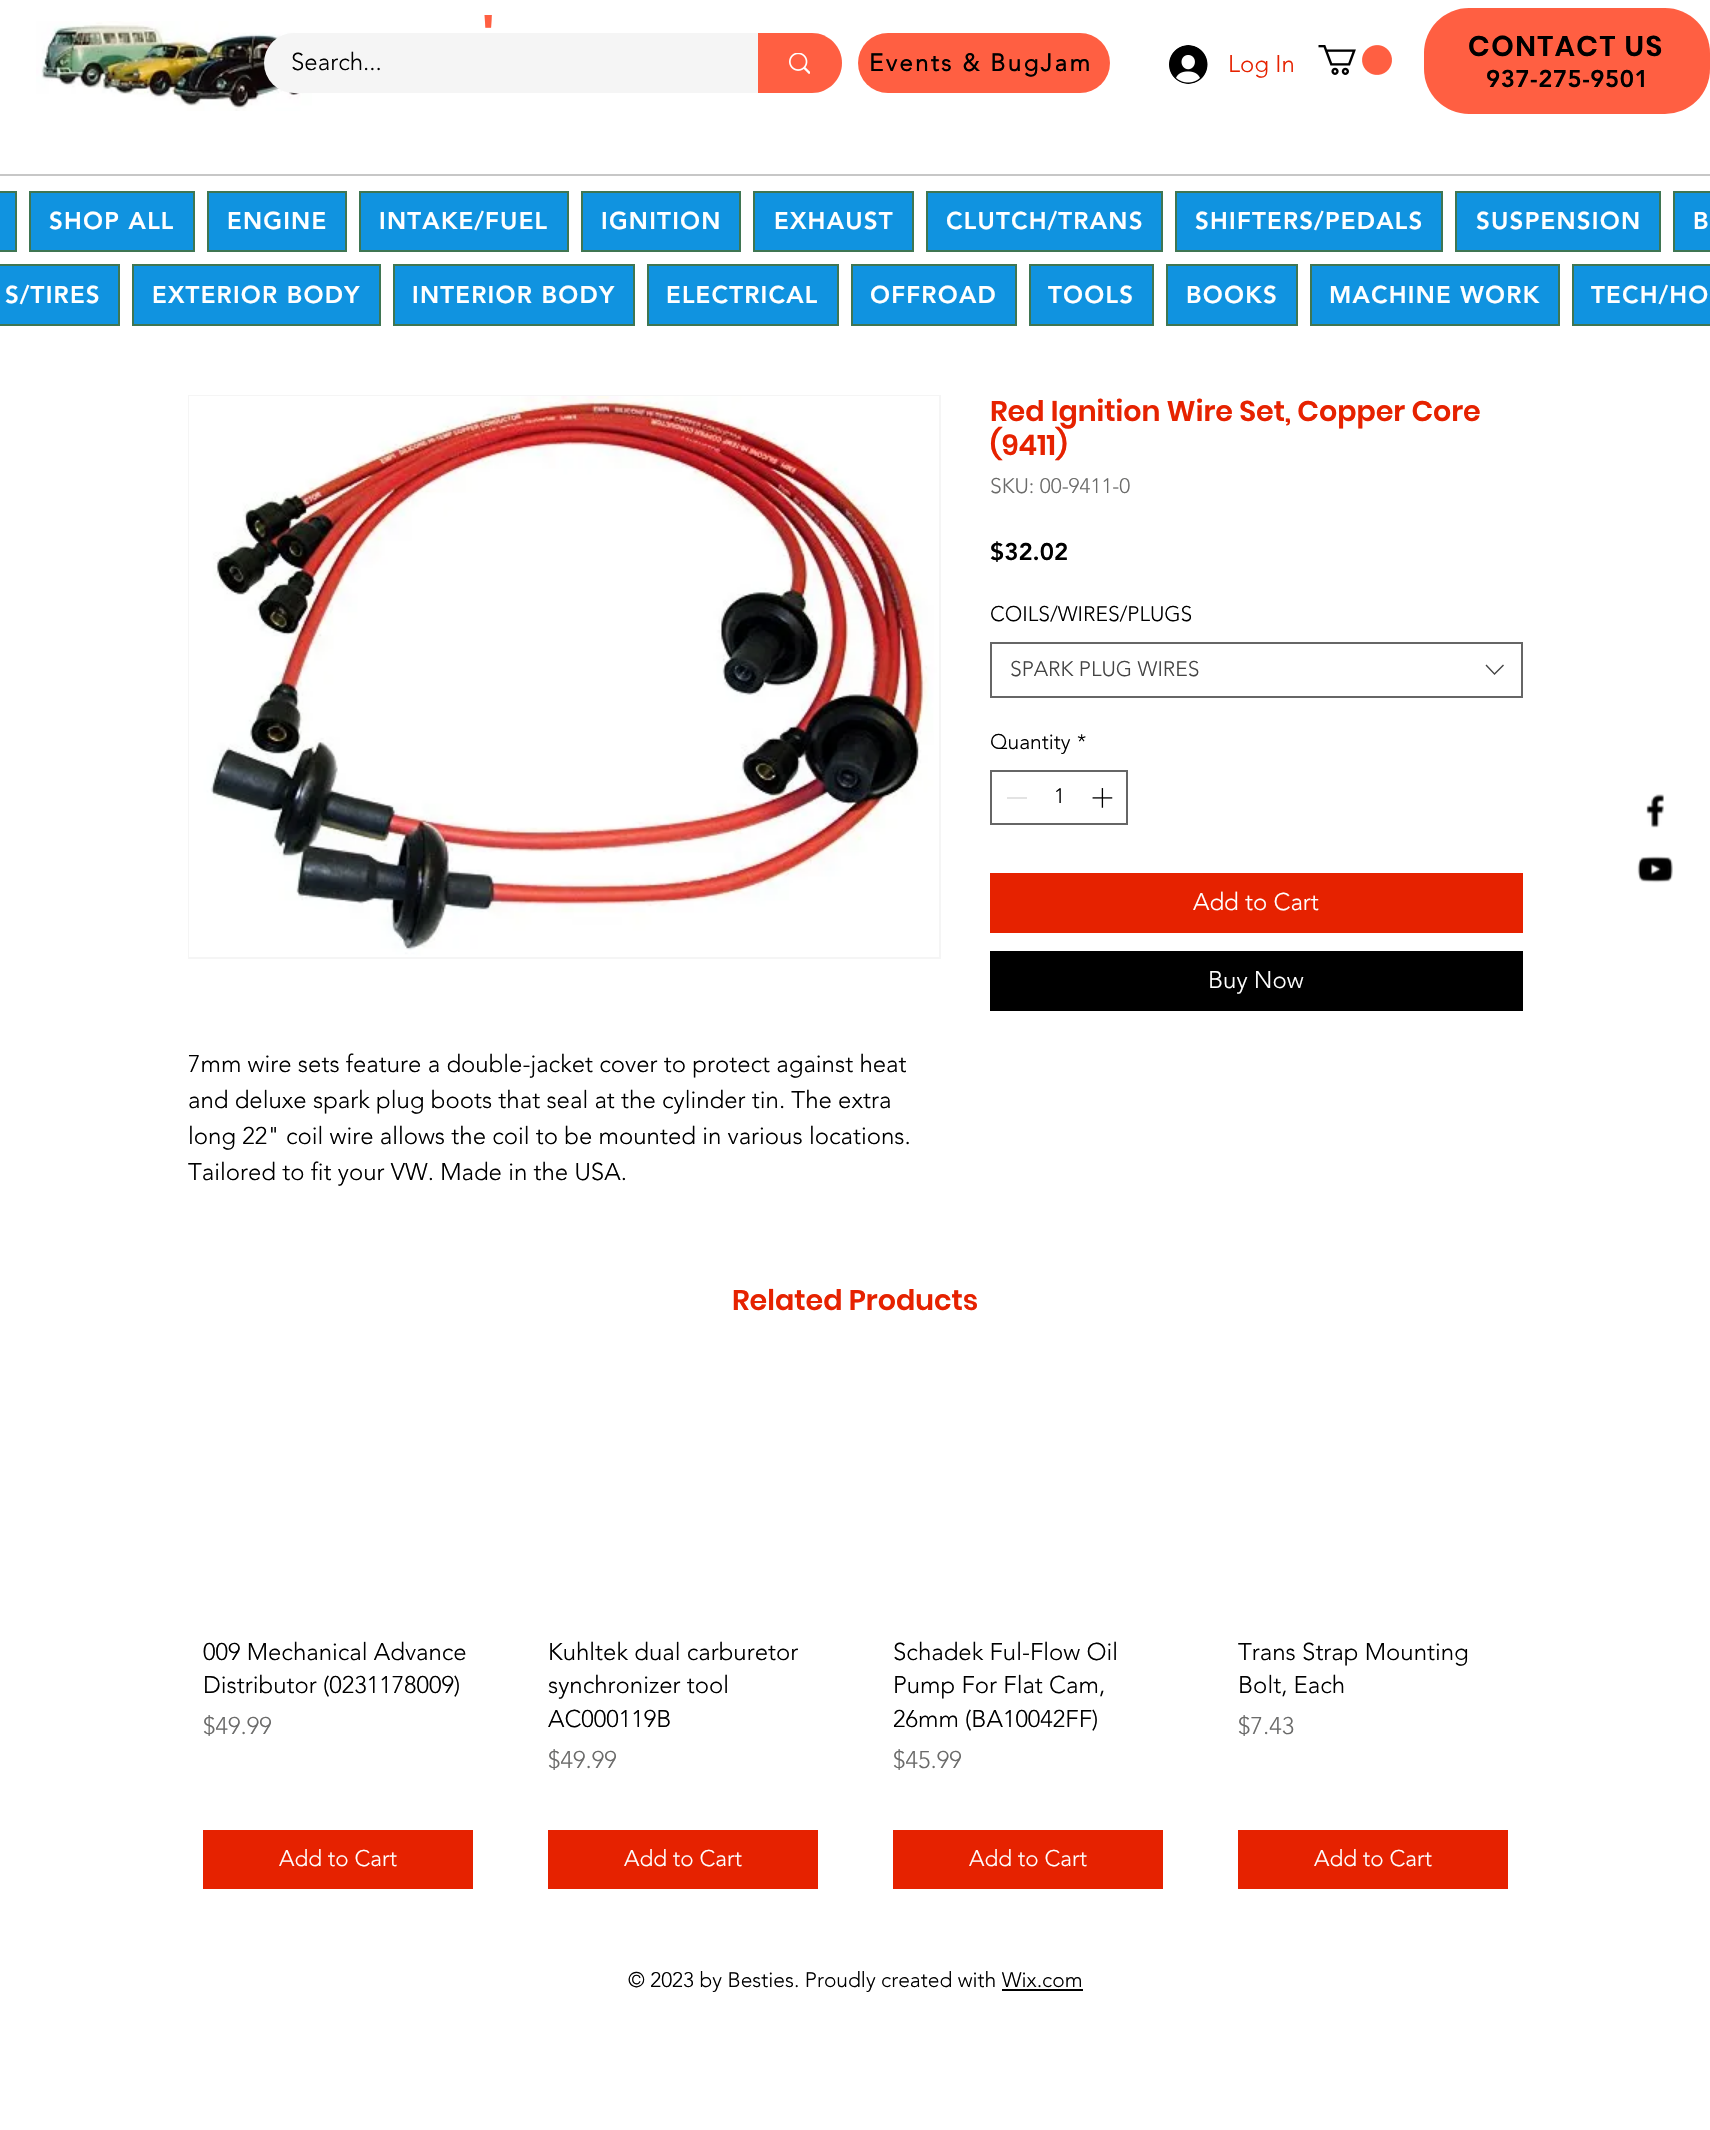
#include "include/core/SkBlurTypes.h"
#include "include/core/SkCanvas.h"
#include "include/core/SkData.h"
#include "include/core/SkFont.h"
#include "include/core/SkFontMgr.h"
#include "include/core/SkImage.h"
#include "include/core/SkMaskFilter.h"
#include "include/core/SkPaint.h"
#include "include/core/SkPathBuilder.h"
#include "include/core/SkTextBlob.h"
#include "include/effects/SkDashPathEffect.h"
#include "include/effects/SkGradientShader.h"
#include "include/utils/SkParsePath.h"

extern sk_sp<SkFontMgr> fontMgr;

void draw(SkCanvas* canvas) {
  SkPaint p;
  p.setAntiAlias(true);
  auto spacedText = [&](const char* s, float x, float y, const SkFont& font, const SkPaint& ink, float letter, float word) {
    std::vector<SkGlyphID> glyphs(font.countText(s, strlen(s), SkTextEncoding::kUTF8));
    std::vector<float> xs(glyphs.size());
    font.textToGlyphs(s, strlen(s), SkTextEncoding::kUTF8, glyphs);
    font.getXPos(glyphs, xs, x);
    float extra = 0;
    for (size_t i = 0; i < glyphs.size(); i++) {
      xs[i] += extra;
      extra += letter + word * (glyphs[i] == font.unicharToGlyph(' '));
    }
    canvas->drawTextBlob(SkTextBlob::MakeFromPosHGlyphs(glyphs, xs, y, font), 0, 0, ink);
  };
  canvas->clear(SK_ColorWHITE);
  canvas->drawImageRect(SkImages::DeferredFromEncodedData(SkData::MakeFromFileName("images/1.png")), SkRect::MakeLTRB(36, 21, 312, 111), SkSamplingOptions());
  p.setColor(SkColorSetRGB(245, 245, 245));
  canvas->drawRoundRect(SkRect::MakeLTRB(264, 33, 842, 93), 30, 30, p);
  p.setColor(SkColorSetRGB(255, 95, 66));
  canvas->drawPath(SkPathBuilder().moveTo(758, 33).lineTo(812, 33).cubicTo(828.5f, 33, 842, 46.5f, 842, 63).cubicTo(842, 79.5f, 828.5f, 93, 812, 93).lineTo(758, 93).close().detach(), p);
  canvas->drawImageRect(SkImages::DeferredFromEncodedData(SkData::MakeFromFileName("images/2.png")), SkRect::MakeLTRB(789, 53, 810, 74), SkSamplingOptions());
  canvas->drawRoundRect(SkRect::MakeLTRB(858, 33, 1110, 93), 30, 30, p);
  canvas->drawImageRect(SkImages::DeferredFromEncodedData(SkData::MakeFromFileName("images/3.png")), SkRect::MakeLTRB(1169, 45, 1208, 84), SkSamplingOptions());
  canvas->drawImageRect(SkImages::DeferredFromEncodedData(SkData::MakeFromFileName("images/4.png")), SkRect::MakeLTRB(1318, 45, 1392, 75), SkSamplingOptions());
  canvas->drawRoundRect(SkRect::MakeLTRB(1424, 8, 1710, 114), 45, 45, p);
  p.setColor(SkColorSetRGB(199, 199, 199));
  canvas->drawRect(SkRect::MakeLTRB(0, 174, 1710, 176), p);
  p.setColor(SkColorSetRGB(16, 147, 224));
  canvas->drawRect(SkRect::MakeLTRB(-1, 192, 16, 251), p);
  p.setStyle(SkPaint::kStroke_Style);
  p.setStrokeWidth(2);
  p.setColor(SkColorSetRGB(63, 118, 82));
  canvas->drawRect(SkRect::MakeLTRB(-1, 192, 16, 251), p);
  p.setStyle(SkPaint::kFill_Style);
  p.setColor(SkColorSetRGB(16, 147, 224));
  canvas->drawRect(SkRect::MakeLTRB(30, 192, 194, 251), p);
  p.setStyle(SkPaint::kStroke_Style);
  p.setColor(SkColorSetRGB(63, 118, 82));
  canvas->drawRect(SkRect::MakeLTRB(30, 192, 194, 251), p);
  p.setStyle(SkPaint::kFill_Style);
  p.setColor(SkColorSetRGB(16, 147, 224));
  canvas->drawRect(SkRect::MakeLTRB(208, 192, 346, 251), p);
  p.setStyle(SkPaint::kStroke_Style);
  p.setColor(SkColorSetRGB(63, 118, 82));
  canvas->drawRect(SkRect::MakeLTRB(208, 192, 346, 251), p);
  p.setStyle(SkPaint::kFill_Style);
  p.setColor(SkColorSetRGB(16, 147, 224));
  canvas->drawRect(SkRect::MakeLTRB(360, 192, 568, 251), p);
  p.setStyle(SkPaint::kStroke_Style);
  p.setColor(SkColorSetRGB(63, 118, 82));
  canvas->drawRect(SkRect::MakeLTRB(360, 192, 568, 251), p);
  p.setStyle(SkPaint::kFill_Style);
  p.setColor(SkColorSetRGB(16, 147, 224));
  canvas->drawRect(SkRect::MakeLTRB(582, 192, 740, 251), p);
  p.setStyle(SkPaint::kStroke_Style);
  p.setColor(SkColorSetRGB(63, 118, 82));
  canvas->drawRect(SkRect::MakeLTRB(582, 192, 740, 251), p);
  p.setStyle(SkPaint::kFill_Style);
  p.setColor(SkColorSetRGB(16, 147, 224));
  canvas->drawRect(SkRect::MakeLTRB(754, 192, 913, 251), p);
  p.setStyle(SkPaint::kStroke_Style);
  p.setColor(SkColorSetRGB(63, 118, 82));
  canvas->drawRect(SkRect::MakeLTRB(754, 192, 913, 251), p);
  p.setStyle(SkPaint::kFill_Style);
  p.setColor(SkColorSetRGB(16, 147, 224));
  canvas->drawRect(SkRect::MakeLTRB(927, 192, 1162, 251), p);
  p.setStyle(SkPaint::kStroke_Style);
  p.setColor(SkColorSetRGB(63, 118, 82));
  canvas->drawRect(SkRect::MakeLTRB(927, 192, 1162, 251), p);
  p.setStyle(SkPaint::kFill_Style);
  p.setColor(SkColorSetRGB(16, 147, 224));
  canvas->drawRect(SkRect::MakeLTRB(1176, 192, 1442, 251), p);
  p.setStyle(SkPaint::kStroke_Style);
  p.setColor(SkColorSetRGB(63, 118, 82));
  canvas->drawRect(SkRect::MakeLTRB(1176, 192, 1442, 251), p);
  p.setStyle(SkPaint::kFill_Style);
  p.setColor(SkColorSetRGB(16, 147, 224));
  canvas->drawRect(SkRect::MakeLTRB(1456, 192, 1660, 251), p);
  p.setStyle(SkPaint::kStroke_Style);
  p.setColor(SkColorSetRGB(63, 118, 82));
  canvas->drawRect(SkRect::MakeLTRB(1456, 192, 1660, 251), p);
  p.setStyle(SkPaint::kFill_Style);
  p.setColor(SkColorSetRGB(16, 147, 224));
  canvas->drawRect(SkRect::MakeLTRB(1674, 192, 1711, 251), p);
  p.setStyle(SkPaint::kStroke_Style);
  p.setColor(SkColorSetRGB(63, 118, 82));
  canvas->drawRect(SkRect::MakeLTRB(1674, 192, 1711, 251), p);
  p.setStyle(SkPaint::kFill_Style);
  p.setColor(SkColorSetRGB(16, 147, 224));
  canvas->drawRect(SkRect::MakeLTRB(-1, 265, 119, 325), p);
  p.setStyle(SkPaint::kStroke_Style);
  p.setColor(SkColorSetRGB(63, 118, 82));
  canvas->drawRect(SkRect::MakeLTRB(-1, 265, 119, 325), p);
  p.setStyle(SkPaint::kFill_Style);
  p.setColor(SkColorSetRGB(16, 147, 224));
  canvas->drawRect(SkRect::MakeLTRB(133, 265, 380, 325), p);
  p.setStyle(SkPaint::kStroke_Style);
  p.setColor(SkColorSetRGB(63, 118, 82));
  canvas->drawRect(SkRect::MakeLTRB(133, 265, 380, 325), p);
  p.setStyle(SkPaint::kFill_Style);
  p.setColor(SkColorSetRGB(16, 147, 224));
  canvas->drawRect(SkRect::MakeLTRB(394, 265, 634, 325), p);
  p.setStyle(SkPaint::kStroke_Style);
  p.setColor(SkColorSetRGB(63, 118, 82));
  canvas->drawRect(SkRect::MakeLTRB(394, 265, 634, 325), p);
  p.setStyle(SkPaint::kFill_Style);
  p.setColor(SkColorSetRGB(16, 147, 224));
  canvas->drawRect(SkRect::MakeLTRB(648, 265, 838, 325), p);
  p.setStyle(SkPaint::kStroke_Style);
  p.setColor(SkColorSetRGB(63, 118, 82));
  canvas->drawRect(SkRect::MakeLTRB(648, 265, 838, 325), p);
  p.setStyle(SkPaint::kFill_Style);
  p.setColor(SkColorSetRGB(16, 147, 224));
  canvas->drawRect(SkRect::MakeLTRB(852, 265, 1016, 325), p);
  p.setStyle(SkPaint::kStroke_Style);
  p.setColor(SkColorSetRGB(63, 118, 82));
  canvas->drawRect(SkRect::MakeLTRB(852, 265, 1016, 325), p);
  p.setStyle(SkPaint::kFill_Style);
  p.setColor(SkColorSetRGB(16, 147, 224));
  canvas->drawRect(SkRect::MakeLTRB(1030, 265, 1153, 325), p);
  p.setStyle(SkPaint::kStroke_Style);
  p.setColor(SkColorSetRGB(63, 118, 82));
  canvas->drawRect(SkRect::MakeLTRB(1030, 265, 1153, 325), p);
  p.setStyle(SkPaint::kFill_Style);
  p.setColor(SkColorSetRGB(16, 147, 224));
  canvas->drawRect(SkRect::MakeLTRB(1167, 265, 1297, 325), p);
  p.setStyle(SkPaint::kStroke_Style);
  p.setColor(SkColorSetRGB(63, 118, 82));
  canvas->drawRect(SkRect::MakeLTRB(1167, 265, 1297, 325), p);
  p.setStyle(SkPaint::kFill_Style);
  p.setColor(SkColorSetRGB(16, 147, 224));
  canvas->drawRect(SkRect::MakeLTRB(1311, 265, 1559, 325), p);
  p.setStyle(SkPaint::kStroke_Style);
  p.setColor(SkColorSetRGB(63, 118, 82));
  canvas->drawRect(SkRect::MakeLTRB(1311, 265, 1559, 325), p);
  p.setStyle(SkPaint::kFill_Style);
  p.setColor(SkColorSetRGB(16, 147, 224));
  canvas->drawRect(SkRect::MakeLTRB(1573, 265, 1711, 325), p);
  p.setStyle(SkPaint::kStroke_Style);
  p.setColor(SkColorSetRGB(63, 118, 82));
  canvas->drawRect(SkRect::MakeLTRB(1573, 265, 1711, 325), p);
  p.setColor(SkColorSetRGB(102, 102, 102));
  canvas->drawRect(SkRect::MakeLTRB(991, 643, 1522, 697), p);
  p.setStyle(SkPaint::kFill_Style);
  p.setColor(SkColorSetRGB(68, 68, 68));
  canvas->drawPath(SkPathBuilder(SkPathFillType::kEvenOdd).moveTo(1503, 664.5f).lineTo(1504, 665.5f).lineTo(1494.5f, 675).lineTo(1485.5f, 665.5f).lineTo(1486.5f, 664.5f).lineTo(1494.5f, 673).close().detach(), p);
  p.setStyle(SkPaint::kStroke_Style);
  p.setColor(SkColorSetRGB(102, 102, 102));
  canvas->drawRect(SkRect::MakeLTRB(991, 771, 1127, 824), p);
  p.setStyle(SkPaint::kFill_Style);
  p.setColor(SkColorSetRGB(227, 227, 227));
  canvas->drawRect(SkRect::MakeLTRB(1007, 797, 1027, 799), p);
  canvas->drawImageRect(SkImages::DeferredFromEncodedData(SkData::MakeFromFileName("images/5.png")), SkRect::MakeLTRB(1092, 788, 1113, 808), SkSamplingOptions());
  p.setColor(SkColorSetRGB(230, 34, 0));
  canvas->drawRect(SkRect::MakeLTRB(990, 873, 1523, 933), p);
  p.setColor(SK_ColorBLACK);
  canvas->drawRect(SkRect::MakeLTRB(990, 951, 1523, 1011), p);
  p.setStyle(SkPaint::kStroke_Style);
  p.setColor(SkColorSetRGB(245, 245, 245));
  canvas->drawRect(SkRect::MakeLTRB(189, 396, 940, 958), p);
  canvas->drawImageRect(SkImages::DeferredFromEncodedData(SkData::MakeFromFileName("images/6.png")), SkRect::MakeLTRB(189, 396, 939, 957), SkSamplingOptions());
  p.setStyle(SkPaint::kFill_Style);
  p.setColor(SkColorSetRGB(230, 34, 0));
  canvas->drawRect(SkRect::MakeLTRB(203, 1830, 473, 1889), p);
  canvas->drawRect(SkRect::MakeLTRB(548, 1830, 818, 1889), p);
  canvas->drawRect(SkRect::MakeLTRB(893, 1830, 1163, 1889), p);
  canvas->drawRect(SkRect::MakeLTRB(1238, 1830, 1508, 1889), p);
  canvas->drawImageRect(SkImages::DeferredFromEncodedData(SkData::MakeFromFileName("images/7.png")), SkRect::MakeLTRB(1646, 794, 1664, 828), SkSamplingOptions());
  canvas->drawImageRect(SkImages::DeferredFromEncodedData(SkData::MakeFromFileName("images/8.png")), SkRect::MakeLTRB(1637, 856, 1673, 883), SkSamplingOptions());
  p.setColor(SK_ColorBLACK);
  canvas->drawRect(SkRect::MakeLTRB(1002, 1989, 1083, 1991), p);
  SkFont font1(fontMgr->matchFamilyStyle("Poppins", SkFontStyle(600, SkFontStyle::kNormal_Width, SkFontStyle::kUpright_Slant)), 60);
  font1.setSubpixel(true);
  p.setColor(SkColorSetRGB(255, 95, 66));
  canvas->drawString("'", 482, 63, font1, p);
  SkFont font2(fontMgr->matchFamilyStyle("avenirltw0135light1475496", SkFontStyle(300, SkFontStyle::kNormal_Width, SkFontStyle::kUpright_Slant)), 24);
  font2.setSubpixel(true);
  p.setColor(SK_ColorBLACK);
  canvas->drawString("Search...", 291, 70, font2, p);
  SkFont font3(fontMgr->matchFamilyStyle("avenirltw0135light1475496", SkFontStyle::Bold()), 24);
  font3.setSubpixel(true);
  spacedText("Events & BugJam", 869, 71, font3, p, 2.4f, 0);
  p.setColor(SkColorSetRGB(230, 34, 0));
  canvas->drawString("Log In", 1228, 72, font2, p);
  SkFont font4(fontMgr->matchFamilyStyle("Poppins", SkFontStyle(600, SkFontStyle::kNormal_Width, SkFontStyle::kUpright_Slant)), 28.5f);
  font4.setSubpixel(true);
  p.setColor(SK_ColorBLACK);
  spacedText("CONTACT US", 1468, 56, font4, p, 1.5f, 0);
  SkFont font5(fontMgr->matchFamilyStyle("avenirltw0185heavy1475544", SkFontStyle(900, SkFontStyle::kNormal_Width, SkFontStyle::kUpright_Slant)), 24);
  font5.setSubpixel(true);
  spacedText("937-275-9501", 1486, 87, font5, p, 0.5f, 0);
  p.setColor(SK_ColorWHITE);
  spacedText("SHOP ALL", 49, 229, font5, p, 1.25f, 0);
  spacedText("ENGINE", 227, 229, font5, p, 1.25f, 0);
  spacedText("INTAKE/FUEL", 379, 229, font5, p, 1.25f, 0);
  spacedText("IGNITION", 601, 229, font5, p, 1.25f, 0);
  spacedText("EXHAUST", 774, 229, font5, p, 1.25f, 0);
  spacedText("CLUTCH/TRANS", 946, 229, font5, p, 1.25f, 0);
  spacedText("SHIFTERS/PEDALS", 1195, 229, font5, p, 1.25f, 0);
  spacedText("SUSPENSION", 1476, 229, font5, p, 1.25f, 0);
  spacedText("B", 1693, 229, font5, p, 1.25f, 0);
  spacedText("S/TIRES", 5, 303, font5, p, 1.25f, 0);
  spacedText("EXTERIOR BODY", 152, 303, font5, p, 1.25f, 0);
  spacedText("INTERIOR BODY", 412, 303, font5, p, 1.25f, 0);
  spacedText("ELECTRICAL", 666, 303, font5, p, 1.25f, 0);
  spacedText("OFFROAD", 870, 303, font5, p, 1.25f, 0);
  spacedText("TOOLS", 1048, 303, font5, p, 1.25f, 0);
  spacedText("BOOKS", 1186, 303, font5, p, 1.25f, 0);
  spacedText("MACHINE WORK", 1329, 303, font5, p, 1.25f, 0);
  spacedText("TECH/HO", 1591, 303, font5, p, 1.25f, 0);
  p.setColor(SkColorSetRGB(230, 34, 0));
  canvas->drawString("Red Ignition Wire Set, Copper Core", 990, 421, font4, p);
  canvas->drawString("(9411)", 990, 455, font4, p);
  SkFont font6(fontMgr->matchFamilyStyle("avenirltw0135light1475496", SkFontStyle(300, SkFontStyle::kNormal_Width, SkFontStyle::kUpright_Slant)), 21);
  font6.setSubpixel(true);
  p.setColor(SkColorSetRGB(107, 107, 106));
  canvas->drawString("SKU: 00-9411-0", 990, 493, font6, p);
  p.setColor(SK_ColorBLACK);
  canvas->drawString("$32.02", 990, 560, font5, p);
  canvas->drawString("COILS/WIRES/PLUGS", 990, 621, font6, p);
  p.setColor(SkColorSetRGB(68, 68, 68));
  canvas->drawString("SPARK PLUG WIRES", 1010, 676, font6, p);
  p.setColor(SK_ColorBLACK);
  canvas->drawString("Quantity", 990, 749, font6, p);
  canvas->drawString("*", 1077, 749, font6, p);
  canvas->drawString("1", 1054, 803, font6, p);
  p.setColor(SK_ColorWHITE);
  canvas->drawString("Add to Cart", 1193, 910, font2, p);
  canvas->drawString("Buy Now", 1208, 988, font2, p);
  p.setColor(SK_ColorBLACK);
  canvas->drawString("7mm wire sets feature a double-jacket cover to protect against heat", 188, 1072, font2, p);
  canvas->drawString("and deluxe spark plug boots that seal at the cylinder tin. The extra", 188, 1108, font2, p);
  canvas->drawString("long 22\" coil wire allows the coil to be mounted in various locations.", 188, 1144, font2, p);
  canvas->drawString("Tailored to fit your VW. Made in the USA.", 188, 1180, font2, p);
  p.setColor(SkColorSetRGB(230, 34, 0));
  canvas->drawString("Related Products", 732, 1310, font4, p);
  p.setColor(SK_ColorBLACK);
  canvas->drawString("009 Mechanical Advance", 203, 1660, font2, p);
  canvas->drawString("Distributor (0231178009)", 203, 1693, font2, p);
  p.setColor(SkColorSetRGB(107, 107, 106));
  canvas->drawString("$49.99", 203, 1734, font2, p);
  SkFont font7(fontMgr->matchFamilyStyle("avenirltw0135light1475496", SkFontStyle(300, SkFontStyle::kNormal_Width, SkFontStyle::kUpright_Slant)), 22.5f);
  font7.setSubpixel(true);
  p.setColor(SK_ColorWHITE);
  canvas->drawString("Add to Cart", 279, 1866, font7, p);
  p.setColor(SK_ColorBLACK);
  canvas->drawString("Kuhltek dual carburetor", 548, 1660, font2, p);
  canvas->drawString("synchronizer tool", 548, 1693, font2, p);
  canvas->drawString("AC000119B", 548, 1727, font2, p);
  p.setColor(SkColorSetRGB(107, 107, 106));
  canvas->drawString("$49.99", 548, 1768, font2, p);
  p.setColor(SK_ColorWHITE);
  canvas->drawString("Add to Cart", 624, 1866, font7, p);
  p.setColor(SK_ColorBLACK);
  canvas->drawString("Schadek Ful-Flow Oil", 893, 1660, font2, p);
  canvas->drawString("Pump For Flat Cam,", 893, 1693, font2, p);
  canvas->drawString("26mm (BA10042FF)", 893, 1727, font2, p);
  p.setColor(SkColorSetRGB(107, 107, 106));
  canvas->drawString("$45.99", 893, 1768, font2, p);
  p.setColor(SK_ColorWHITE);
  canvas->drawString("Add to Cart", 969, 1866, font7, p);
  p.setColor(SK_ColorBLACK);
  canvas->drawString("Trans Strap Mounting", 1238, 1660, font2, p);
  canvas->drawString("Bolt, Each", 1238, 1693, font2, p);
  p.setColor(SkColorSetRGB(107, 107, 106));
  canvas->drawString("$7.43", 1238, 1734, font2, p);
  p.setColor(SK_ColorWHITE);
  canvas->drawString("Add to Cart", 1314, 1866, font7, p);
  p.setColor(SK_ColorBLACK);
  canvas->drawString("© 2023 by Besties. Proudly created with Wix.com", 628, 1987, font6, p);
}
